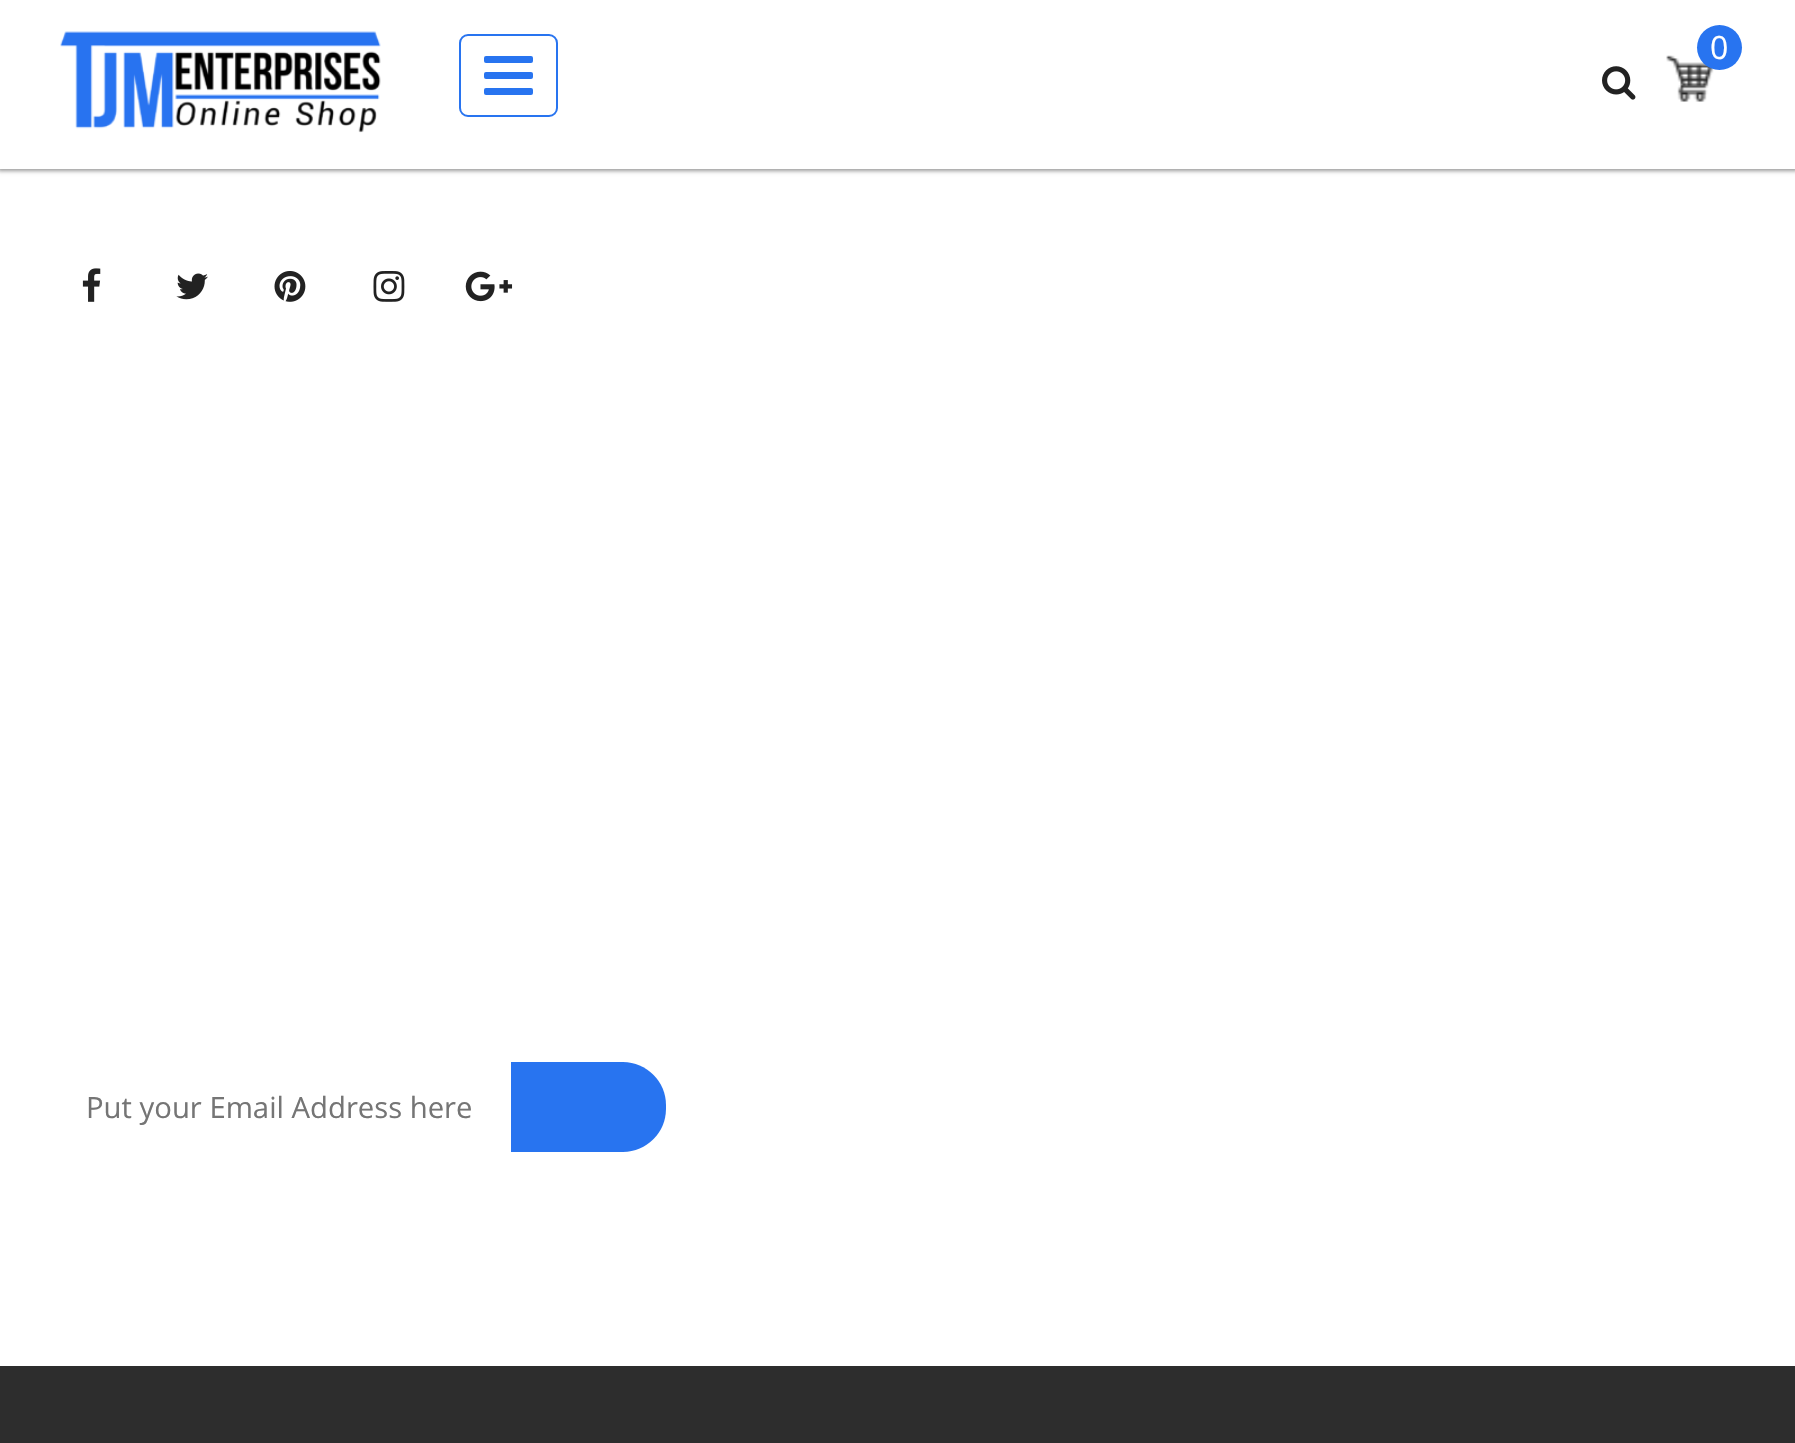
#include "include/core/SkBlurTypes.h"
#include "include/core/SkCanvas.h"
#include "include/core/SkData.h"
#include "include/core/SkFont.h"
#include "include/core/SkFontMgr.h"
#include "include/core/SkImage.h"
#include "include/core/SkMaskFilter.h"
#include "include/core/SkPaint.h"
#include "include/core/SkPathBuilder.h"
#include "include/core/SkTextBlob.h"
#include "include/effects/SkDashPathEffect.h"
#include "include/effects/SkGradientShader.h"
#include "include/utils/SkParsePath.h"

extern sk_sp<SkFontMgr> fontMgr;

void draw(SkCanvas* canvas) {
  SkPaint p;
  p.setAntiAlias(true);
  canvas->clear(SK_ColorWHITE);
  p.setColor(SkColorSetRGB(153, 153, 153));
  p.setMaskFilter(SkMaskFilter::MakeBlur(kNormal_SkBlurStyle, 2));
  canvas->drawRect(SkRect::MakeLTRB(-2, -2, 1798, 171), p);
  p.setMaskFilter(nullptr);
  p.setColor(SK_ColorWHITE);
  canvas->drawRect(SkRect::MakeLTRB(0, 0, 1795, 169), p);
  canvas->drawImageRect(SkImages::DeferredFromEncodedData(SkData::MakeFromFileName("images/1.png")), SkRect::MakeLTRB(60, 31, 381, 133), SkSamplingOptions());
  p.setStyle(SkPaint::kStroke_Style);
  p.setStrokeWidth(2);
  p.setColor(SkColorSetRGB(40, 116, 240));
  canvas->drawRoundRect(SkRect::MakeLTRB(460, 35, 557, 116), 8, 8, p);
  p.setStyle(SkPaint::kFill_Style);
  canvas->drawRoundRect(SkRect::MakeLTRB(484, 56, 533, 63), 2, 2, p);
  canvas->drawRoundRect(SkRect::MakeLTRB(484, 72, 533, 79), 2, 2, p);
  canvas->drawRoundRect(SkRect::MakeLTRB(484, 88, 533, 95), 2, 2, p);
  canvas->drawImageRect(SkImages::DeferredFromEncodedData(SkData::MakeFromFileName("images/2.png")), SkRect::MakeLTRB(1666, 55, 1714, 102), SkSamplingOptions());
  canvas->drawCircle(1719.5f, 47.5f, 22.5f, p);
  canvas->drawImageRect(SkImages::DeferredFromEncodedData(SkData::MakeFromFileName("images/3.png")), SkRect::MakeLTRB(1602, 66, 1636, 100), SkSamplingOptions());
  canvas->drawImageRect(SkImages::DeferredFromEncodedData(SkData::MakeFromFileName("images/4.png")), SkRect::MakeLTRB(82, 268, 101, 302), SkSamplingOptions());
  canvas->drawImageRect(SkImages::DeferredFromEncodedData(SkData::MakeFromFileName("images/5.png")), SkRect::MakeLTRB(176, 273, 208, 300), SkSamplingOptions());
  canvas->drawImageRect(SkImages::DeferredFromEncodedData(SkData::MakeFromFileName("images/6.png")), SkRect::MakeLTRB(274, 271, 306, 302), SkSamplingOptions());
  canvas->drawImageRect(SkImages::DeferredFromEncodedData(SkData::MakeFromFileName("images/7.png")), SkRect::MakeLTRB(373, 271, 405, 302), SkSamplingOptions());
  canvas->drawImageRect(SkImages::DeferredFromEncodedData(SkData::MakeFromFileName("images/8.png")), SkRect::MakeLTRB(465, 271, 513, 302), SkSamplingOptions());
  canvas->drawPath(SkPathBuilder().moveTo(511, 1062).lineTo(623, 1062).cubicTo(646.5f, 1062, 666, 1081.5f, 666, 1105).lineTo(666, 1109).cubicTo(666, 1132.5f, 646.5f, 1152, 623, 1152).lineTo(511, 1152).close().detach(), p);
  p.setColor(SkColorSetRGB(45, 45, 45));
  canvas->drawRect(SkRect::MakeLTRB(0, 1366, 1795, 1443), p);
  SkFont font1(fontMgr->matchFamilyStyle("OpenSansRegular", SkFontStyle::Normal()), 32);
  font1.setSubpixel(true);
  p.setColor(SK_ColorWHITE);
  canvas->drawString("0", 1710, 59, font1, p);
  SkFont font2(fontMgr->matchFamilyStyle("OpenSansRegular", SkFontStyle::Normal()), 29.25f);
  font2.setSubpixel(true);
  p.setColor(SkColorSetRGB(117, 117, 117));
  canvas->drawString("Put your Email Address here", 86, 1118, font2, p);
}
